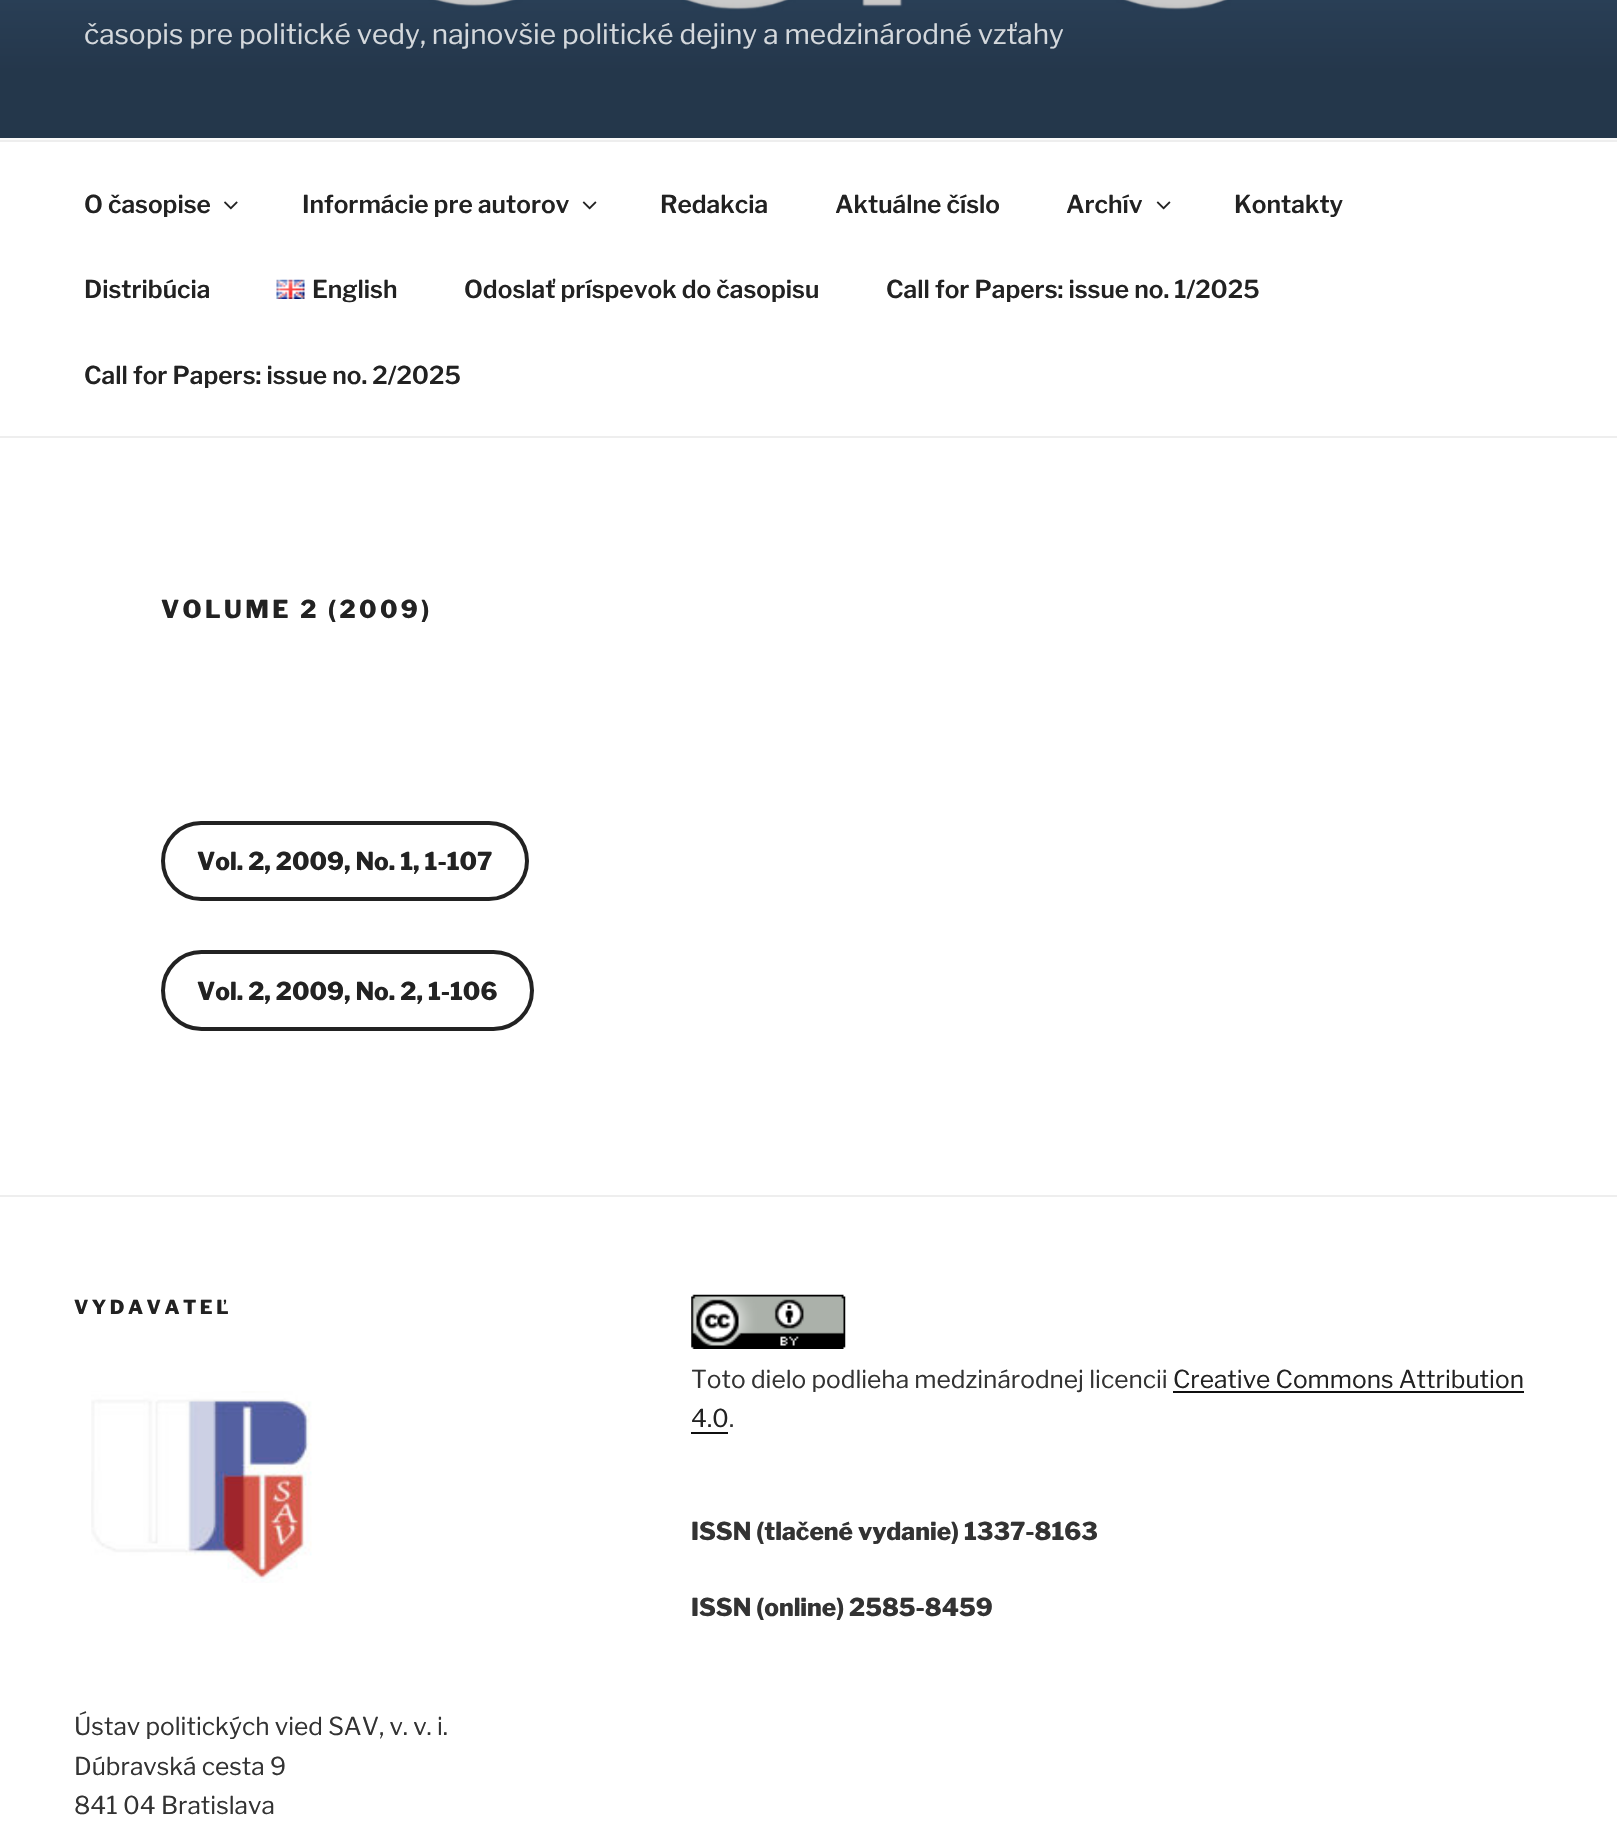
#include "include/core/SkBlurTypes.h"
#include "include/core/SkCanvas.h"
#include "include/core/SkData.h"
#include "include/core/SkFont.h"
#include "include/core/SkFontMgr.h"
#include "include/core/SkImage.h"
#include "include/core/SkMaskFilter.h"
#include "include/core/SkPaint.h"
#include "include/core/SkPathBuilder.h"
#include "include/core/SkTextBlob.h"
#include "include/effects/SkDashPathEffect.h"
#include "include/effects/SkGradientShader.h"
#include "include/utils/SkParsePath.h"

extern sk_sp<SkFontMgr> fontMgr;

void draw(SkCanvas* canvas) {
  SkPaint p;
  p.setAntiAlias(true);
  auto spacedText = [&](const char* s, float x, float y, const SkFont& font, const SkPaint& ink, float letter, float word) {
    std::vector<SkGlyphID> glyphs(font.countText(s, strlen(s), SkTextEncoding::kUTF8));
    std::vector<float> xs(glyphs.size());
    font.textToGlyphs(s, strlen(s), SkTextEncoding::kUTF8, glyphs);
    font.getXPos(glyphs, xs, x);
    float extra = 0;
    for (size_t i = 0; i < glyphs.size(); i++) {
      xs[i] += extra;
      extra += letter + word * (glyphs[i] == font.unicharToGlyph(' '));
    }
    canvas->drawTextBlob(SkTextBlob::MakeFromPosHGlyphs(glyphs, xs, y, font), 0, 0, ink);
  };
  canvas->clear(SK_ColorWHITE);
  p.setColor(SkColorSetRGB(250, 250, 250));
  canvas->drawRect(SkRect::MakeLTRB(0, 138, 1617, 140), p);
  canvas->drawImageRect(SkImages::DeferredFromEncodedData(SkData::MakeFromFileName("images/1.png")), SkRect::MakeLTRB(0, 0, 1617, 138), SkSamplingOptions());
  p.setColor(SkColorSetRGB(238, 238, 238));
  canvas->drawRect(SkRect::MakeLTRB(0, 140, 1617, 142), p);
  canvas->drawRect(SkRect::MakeLTRB(0, 436, 1617, 438), p);
  canvas->drawImageRect(SkImages::DeferredFromEncodedData(SkData::MakeFromFileName("images/2.png")), SkRect::MakeLTRB(224, 201, 238, 210), SkSamplingOptions());
  canvas->drawImageRect(SkImages::DeferredFromEncodedData(SkData::MakeFromFileName("images/3.png")), SkRect::MakeLTRB(582, 201, 597, 210), SkSamplingOptions());
  canvas->drawImageRect(SkImages::DeferredFromEncodedData(SkData::MakeFromFileName("images/3.png")), SkRect::MakeLTRB(1156, 201, 1171, 210), SkSamplingOptions());
  canvas->drawImageRect(SkImages::DeferredFromEncodedData(SkData::MakeFromFileName("images/4.png")), SkRect::MakeLTRB(276, 279, 305, 299), SkSamplingOptions());
  p.setStyle(SkPaint::kStroke_Style);
  p.setStrokeWidth(4);
  p.setColor(SkColorSetRGB(34, 34, 34));
  canvas->drawRoundRect(SkRect::MakeLTRB(163, 823, 527, 899), 38, 38, p);
  canvas->drawRoundRect(SkRect::MakeLTRB(163, 952, 532, 1029), 38.5f, 38.5f, p);
  p.setStyle(SkPaint::kFill_Style);
  p.setColor(SkColorSetRGB(238, 238, 238));
  canvas->drawRect(SkRect::MakeLTRB(0, 1195, 1617, 1197), p);
  canvas->drawImageRect(SkImages::DeferredFromEncodedData(SkData::MakeFromFileName("images/5.png")), SkRect::MakeLTRB(91, 1391, 312, 1583), SkSamplingOptions());
  canvas->drawImageRect(SkImages::DeferredFromEncodedData(SkData::MakeFromFileName("images/6.png")), SkRect::MakeLTRB(691, 1294, 846, 1349), SkSamplingOptions());
  p.setColor(SkColorSetRGB(15, 15, 15));
  canvas->drawRect(SkRect::MakeLTRB(1173, 1391, 1524, 1393), p);
  canvas->drawRect(SkRect::MakeLTRB(691, 1432, 728, 1434), p);
  SkFont font1(fontMgr->matchFamilyStyle("Libre Franklin", SkFontStyle::Normal()), 28);
  font1.setSubpixel(true);
  p.setColor(SkColorSetRGB(212, 216, 220));
  canvas->drawString("časopis pre politické vedy, najnovšie politické dejiny a medzinárodné vzťahy", 84, 44, font1, p);
  SkFont font2(fontMgr->matchFamilyStyle("Libre Franklin", SkFontStyle(600, SkFontStyle::kNormal_Width, SkFontStyle::kUpright_Slant)), 24.5f);
  font2.setSubpixel(true);
  p.setColor(SkColorSetRGB(34, 34, 34));
  canvas->drawString("O časopise", 84, 213, font2, p);
  canvas->drawString("Informácie pre autorov", 302, 213, font2, p);
  canvas->drawString("Redakcia", 660, 213, font2, p);
  canvas->drawString("Aktuálne číslo", 835, 213, font2, p);
  canvas->drawString("Archív", 1066, 213, font2, p);
  canvas->drawString("Kontakty", 1234, 213, font2, p);
  canvas->drawString("Distribúcia", 84, 298, font2, p);
  canvas->drawString("English", 312, 298, font2, p);
  canvas->drawString("Odoslať príspevok do časopisu", 464, 298, font2, p);
  canvas->drawString("Call for Papers: issue no. 1/2025", 886, 298, font2, p);
  canvas->drawString("Call for Papers: issue no. 2/2025", 84, 384, font2, p);
  SkFont font3(fontMgr->matchFamilyStyle("Libre Franklin", SkFontStyle(800, SkFontStyle::kNormal_Width, SkFontStyle::kUpright_Slant)), 24.5f);
  font3.setSubpixel(true);
  spacedText("VOLUME 2 (2009)", 161, 618, font3, p, 3.4f, 0);
  canvas->drawString("Vol. 2, 2009, No. 1, 1-107", 197, 870, font3, p);
  canvas->drawString("Vol. 2, 2009, No. 2, 1-106", 197, 1000, font3, p);
  SkFont font4(fontMgr->matchFamilyStyle("Libre Franklin", SkFontStyle(800, SkFontStyle::kNormal_Width, SkFontStyle::kUpright_Slant)), 19.25f);
  font4.setSubpixel(true);
  spacedText("VYDAVATEĽ", 74, 1314, font4, p, 3.5f, 0);
  SkFont font5(fontMgr->matchFamilyStyle("Libre Franklin", SkFontStyle::Normal()), 24.5f);
  font5.setSubpixel(true);
  p.setColor(SkColorSetRGB(51, 51, 51));
  canvas->drawString("Ústav politických vied SAV, v. v. i.", 74, 1735, font5, p);
  canvas->drawString("Dúbravská cesta 9", 74, 1775, font5, p);
  canvas->drawString("841 04 Bratislava", 74, 1814, font5, p);
  canvas->drawString("Toto dielo podlieha medzinárodnej licencii", 691, 1388, font5, p);
  p.setColor(SkColorSetRGB(34, 34, 34));
  canvas->drawString("Creative Commons Attribution", 1173, 1388, font5, p);
  canvas->drawString("4.0", 691, 1427, font5, p);
  p.setColor(SkColorSetRGB(51, 51, 51));
  canvas->drawString(".", 729, 1427, font5, p);
  canvas->drawString("ISSN (tlačené vydanie) 1337-8163", 691, 1540, font3, p);
  canvas->drawString("ISSN (online) 2585-8459", 691, 1616, font3, p);
}
